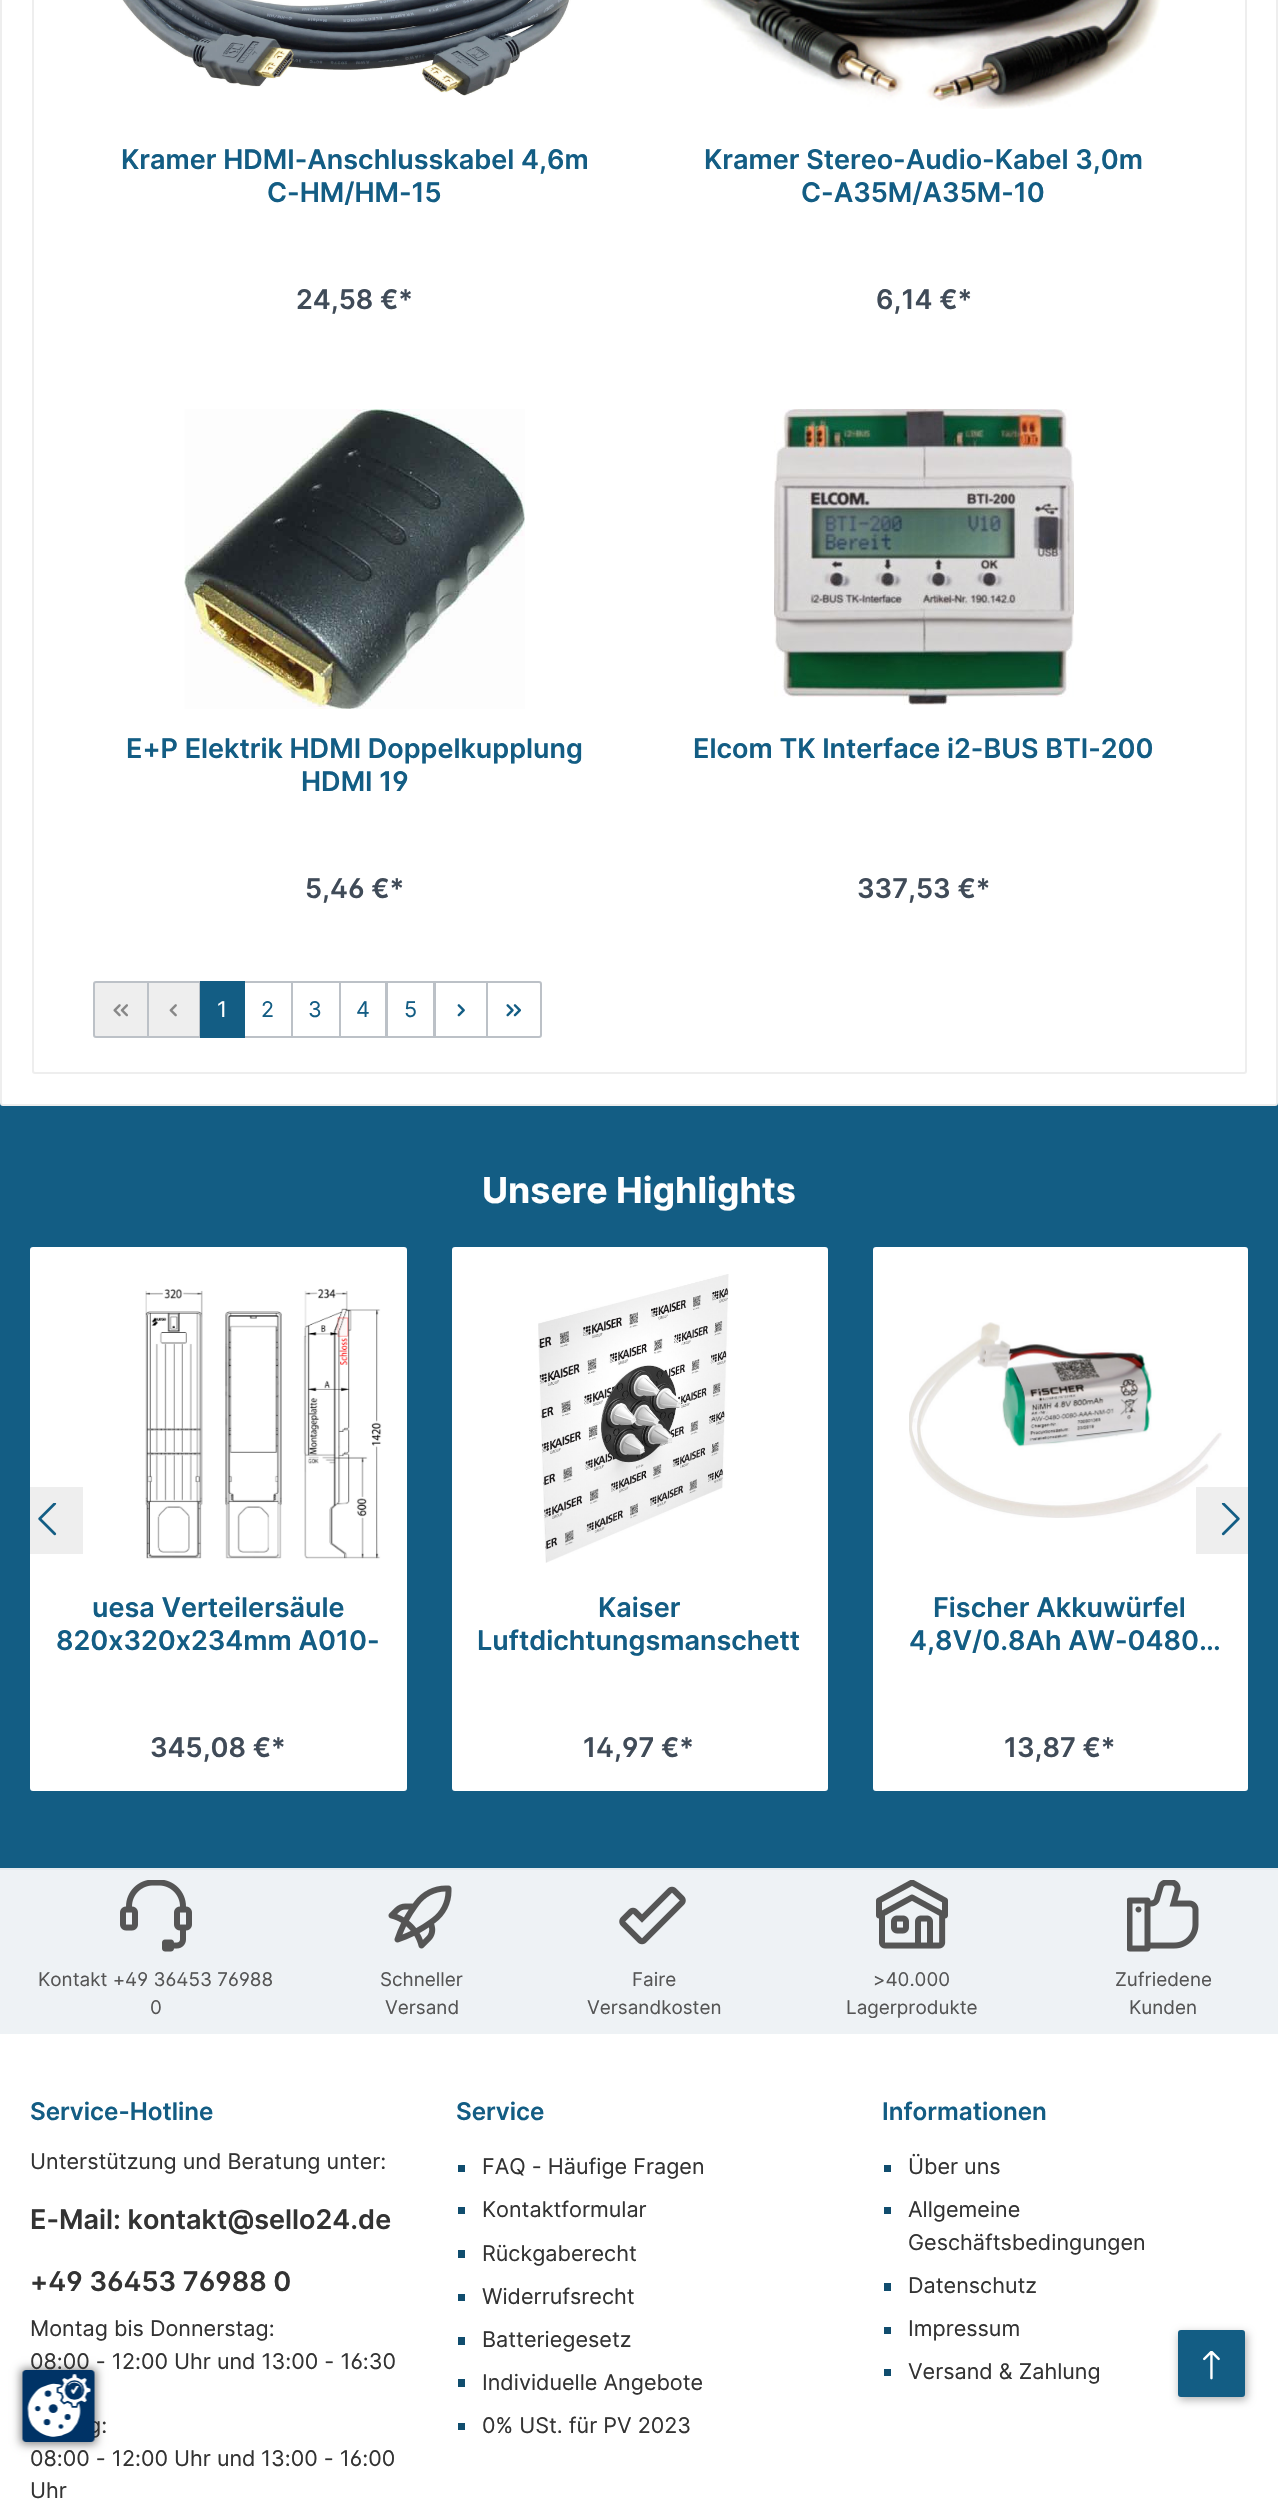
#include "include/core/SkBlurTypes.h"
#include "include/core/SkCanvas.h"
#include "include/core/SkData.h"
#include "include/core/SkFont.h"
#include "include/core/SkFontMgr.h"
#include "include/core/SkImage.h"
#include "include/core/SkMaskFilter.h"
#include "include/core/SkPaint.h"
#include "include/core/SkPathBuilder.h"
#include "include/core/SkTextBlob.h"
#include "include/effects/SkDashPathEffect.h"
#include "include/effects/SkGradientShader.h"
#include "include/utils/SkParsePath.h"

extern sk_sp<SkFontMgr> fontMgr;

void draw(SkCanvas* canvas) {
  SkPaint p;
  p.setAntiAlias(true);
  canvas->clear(SkColorSetRGB(19, 93, 132));
  p.setColor(SK_ColorWHITE);
  canvas->drawRoundRect(SkRect::MakeLTRB(1, -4, 1277, 1105), 2, 2, p);
  p.setStyle(SkPaint::kStroke_Style);
  p.setStrokeWidth(2);
  p.setColor(SkColorSetRGB(238, 238, 238));
  canvas->drawRoundRect(SkRect::MakeLTRB(1, -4, 1277, 1105), 2, 2, p);
  canvas->drawRoundRect(SkRect::MakeLTRB(33, -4, 1246, 1073), 2, 2, p);
  canvas->drawImageRect(SkImages::DeferredFromEncodedData(SkData::MakeFromFileName("images/1.png")), SkRect::MakeLTRB(122, 0, 571, 96), SkSamplingOptions());
  canvas->drawImageRect(SkImages::DeferredFromEncodedData(SkData::MakeFromFileName("images/2.png")), SkRect::MakeLTRB(701, 0, 1161, 109), SkSamplingOptions());
  canvas->drawImageRect(SkImages::DeferredFromEncodedData(SkData::MakeFromFileName("images/3.png")), SkRect::MakeLTRB(184, 409, 525, 709), SkSamplingOptions());
  canvas->drawImageRect(SkImages::DeferredFromEncodedData(SkData::MakeFromFileName("images/4.png")), SkRect::MakeLTRB(774, 409, 1074, 705), SkSamplingOptions());
  p.setStyle(SkPaint::kFill_Style);
  canvas->drawPath(SkPathBuilder().moveTo(96, 982).lineTo(148, 982).lineTo(148, 1037).lineTo(96, 1037).cubicTo(95, 1037, 94, 1036, 94, 1035).lineTo(94, 984).cubicTo(94, 983, 95, 982, 96, 982).close().detach(), p);
  p.setStyle(SkPaint::kStroke_Style);
  p.setColor(SkColorSetRGB(188, 193, 199));
  canvas->drawPath(SkPathBuilder().moveTo(96, 982).lineTo(148, 982).lineTo(148, 1037).lineTo(96, 1037).cubicTo(95, 1037, 94, 1036, 94, 1035).lineTo(94, 984).cubicTo(94, 983, 95, 982, 96, 982).close().detach(), p);
  canvas->drawImageRect(SkImages::DeferredFromEncodedData(SkData::MakeFromFileName("images/5.png")), SkRect::MakeLTRB(113, 1004, 128, 1017), SkSamplingOptions());
  p.setStyle(SkPaint::kFill_Style);
  p.setColor(SkColorSetRGB(238, 238, 238));
  canvas->drawRect(SkRect::MakeLTRB(148, 982, 200, 1037), p);
  p.setStyle(SkPaint::kStroke_Style);
  p.setColor(SkColorSetRGB(188, 193, 199));
  canvas->drawRect(SkRect::MakeLTRB(148, 982, 200, 1037), p);
  canvas->drawImageRect(SkImages::DeferredFromEncodedData(SkData::MakeFromFileName("images/6.png")), SkRect::MakeLTRB(169, 1004, 177, 1017), SkSamplingOptions());
  canvas->drawRect(SkRect::MakeLTRB(244, 982, 292, 1037), p);
  p.setStyle(SkPaint::kFill_Style);
  p.setColor(SkColorSetRGB(19, 93, 132));
  canvas->drawRect(SkRect::MakeLTRB(200, 981, 245, 1038), p);
  p.setStyle(SkPaint::kStroke_Style);
  p.setColor(SkColorSetRGB(188, 193, 199));
  canvas->drawRect(SkRect::MakeLTRB(292, 982, 340, 1037), p);
  canvas->drawRect(SkRect::MakeLTRB(340, 982, 386, 1037), p);
  canvas->drawRect(SkRect::MakeLTRB(387, 982, 434, 1037), p);
  canvas->drawRect(SkRect::MakeLTRB(435, 982, 487, 1037), p);
  canvas->drawImageRect(SkImages::DeferredFromEncodedData(SkData::MakeFromFileName("images/7.png")), SkRect::MakeLTRB(457, 1004, 465, 1017), SkSamplingOptions());
  p.setStyle(SkPaint::kFill_Style);
  p.setColor(SK_ColorWHITE);
  canvas->drawPath(SkPathBuilder().moveTo(487, 982).lineTo(539, 982).cubicTo(540, 982, 541, 983, 541, 984).lineTo(541, 1035).cubicTo(541, 1036, 540, 1037, 539, 1037).lineTo(487, 1037).close().detach(), p);
  p.setStyle(SkPaint::kStroke_Style);
  p.setColor(SkColorSetRGB(188, 193, 199));
  canvas->drawPath(SkPathBuilder().moveTo(487, 982).lineTo(539, 982).cubicTo(540, 982, 541, 983, 541, 984).lineTo(541, 1035).cubicTo(541, 1036, 540, 1037, 539, 1037).lineTo(487, 1037).close().detach(), p);
  canvas->drawImageRect(SkImages::DeferredFromEncodedData(SkData::MakeFromFileName("images/8.png")), SkRect::MakeLTRB(506, 1004, 521, 1017), SkSamplingOptions());
  p.setStyle(SkPaint::kFill_Style);
  p.setColor(SK_ColorWHITE);
  canvas->drawRoundRect(SkRect::MakeLTRB(31, 1248, 406, 1790), 2, 2, p);
  p.setStyle(SkPaint::kStroke_Style);
  canvas->drawRoundRect(SkRect::MakeLTRB(31, 1248, 406, 1790), 2, 2, p);
  p.setStyle(SkPaint::kFill_Style);
  p.setColor(SkColorSetRGB(238, 238, 238));
  canvas->drawRect(SkRect::MakeLTRB(30, 1487, 83, 1554), p);
  canvas->drawImageRect(SkImages::DeferredFromEncodedData(SkData::MakeFromFileName("images/9.png")), SkRect::MakeLTRB(38, 1503, 57, 1536), SkSamplingOptions());
  p.setColor(SK_ColorWHITE);
  canvas->drawRoundRect(SkRect::MakeLTRB(874, 1248, 1247, 1790), 2, 2, p);
  p.setStyle(SkPaint::kStroke_Style);
  canvas->drawRoundRect(SkRect::MakeLTRB(874, 1248, 1247, 1790), 2, 2, p);
  canvas->drawImageRect(SkImages::DeferredFromEncodedData(SkData::MakeFromFileName("images/13.png")), SkRect::MakeLTRB(909, 1322, 1222, 1518), SkSamplingOptions());
  p.setStyle(SkPaint::kFill_Style);
  p.setColor(SkColorSetRGB(238, 238, 238));
  canvas->drawRect(SkRect::MakeLTRB(1196, 1487, 1248, 1554), p);
  canvas->drawImageRect(SkImages::DeferredFromEncodedData(SkData::MakeFromFileName("images/10.png")), SkRect::MakeLTRB(1221, 1503, 1240, 1536), SkSamplingOptions());
  canvas->drawImageRect(SkImages::DeferredFromEncodedData(SkData::MakeFromFileName("images/11.png")), SkRect::MakeLTRB(145, 1288, 382, 1559), SkSamplingOptions());
  p.setColor(SK_ColorWHITE);
  canvas->drawRoundRect(SkRect::MakeLTRB(453, 1248, 827, 1790), 2, 2, p);
  p.setStyle(SkPaint::kStroke_Style);
  canvas->drawRoundRect(SkRect::MakeLTRB(453, 1248, 827, 1790), 2, 2, p);
  canvas->drawImageRect(SkImages::DeferredFromEncodedData(SkData::MakeFromFileName("images/12.png")), SkRect::MakeLTRB(538, 1274, 729, 1563), SkSamplingOptions());
  p.setStyle(SkPaint::kFill_Style);
  p.setColor(SkColorSetRGB(238, 242, 245));
  canvas->drawRect(SkRect::MakeLTRB(0, 1870, 1278, 2034), p);
  p.setColor(SkColorSetRGB(229, 235, 240));
  canvas->drawRect(SkRect::MakeLTRB(0, 1868, 1278, 1870), p);
  canvas->drawImageRect(SkImages::DeferredFromEncodedData(SkData::MakeFromFileName("images/14.png")), SkRect::MakeLTRB(120, 1880, 192, 1952), SkSamplingOptions());
  canvas->drawImageRect(SkImages::DeferredFromEncodedData(SkData::MakeFromFileName("images/15.png")), SkRect::MakeLTRB(388, 1885, 452, 1949), SkSamplingOptions());
  canvas->drawImageRect(SkImages::DeferredFromEncodedData(SkData::MakeFromFileName("images/16.png")), SkRect::MakeLTRB(619, 1886, 686, 1945), SkSamplingOptions());
  canvas->drawImageRect(SkImages::DeferredFromEncodedData(SkData::MakeFromFileName("images/17.png")), SkRect::MakeLTRB(876, 1880, 948, 1949), SkSamplingOptions());
  canvas->drawImageRect(SkImages::DeferredFromEncodedData(SkData::MakeFromFileName("images/18.png")), SkRect::MakeLTRB(1127, 1880, 1199, 1952), SkSamplingOptions());
  p.setColor(SK_ColorWHITE);
  canvas->drawRect(SkRect::MakeLTRB(0, 2034, 1278, 2502), p);
  p.setColor(SkColorSetRGB(16, 77, 110));
  canvas->drawRect(SkRect::MakeLTRB(458, 2165, 465, 2172), p);
  canvas->drawRect(SkRect::MakeLTRB(458, 2207, 465, 2214), p);
  canvas->drawRect(SkRect::MakeLTRB(458, 2250, 465, 2258), p);
  canvas->drawRect(SkRect::MakeLTRB(458, 2294, 465, 2301), p);
  canvas->drawRect(SkRect::MakeLTRB(458, 2337, 465, 2345), p);
  canvas->drawRect(SkRect::MakeLTRB(458, 2379, 465, 2387), p);
  canvas->drawRect(SkRect::MakeLTRB(458, 2423, 465, 2430), p);
  canvas->drawRect(SkRect::MakeLTRB(884, 2165, 891, 2172), p);
  canvas->drawRect(SkRect::MakeLTRB(884, 2207, 891, 2214), p);
  canvas->drawRect(SkRect::MakeLTRB(884, 2283, 891, 2291), p);
  canvas->drawRect(SkRect::MakeLTRB(884, 2327, 891, 2334), p);
  canvas->drawRect(SkRect::MakeLTRB(884, 2369, 891, 2376), p);
  p.setColor(SkColorSetARGB(77, 0, 0, 0));
  p.setMaskFilter(SkMaskFilter::MakeBlur(kNormal_SkBlurStyle, 4.5f));
  canvas->drawRoundRect(SkRect::MakeLTRB(1179, 2333, 1247, 2400), 3, 3, p);
  p.setMaskFilter(nullptr);
  p.setColor(SkColorSetRGB(19, 93, 132));
  canvas->drawRoundRect(SkRect::MakeLTRB(1179, 2331, 1244, 2396), 2, 2, p);
  p.setStyle(SkPaint::kStroke_Style);
  canvas->drawRoundRect(SkRect::MakeLTRB(1179, 2331, 1244, 2396), 2, 2, p);
  canvas->drawImageRect(SkImages::DeferredFromEncodedData(SkData::MakeFromFileName("images/19.png")), SkRect::MakeLTRB(1203, 2351, 1220, 2380), SkSamplingOptions());
  p.setStyle(SkPaint::kFill_Style);
  p.setColor(SkColorSetARGB(128, 0, 0, 0));
  p.setMaskFilter(SkMaskFilter::MakeBlur(kNormal_SkBlurStyle, 4.5f));
  canvas->drawRect(SkRect::MakeLTRB(21, 2369, 96, 2444), p);
  p.setMaskFilter(nullptr);
  SkFont font1(fontMgr->matchFamilyStyle("Inter", SkFontStyle(600, SkFontStyle::kNormal_Width, SkFontStyle::kUpright_Slant)), 27);
  font1.setSubpixel(true);
  p.setColor(SkColorSetRGB(19, 93, 132));
  canvas->drawString("Kramer HDMI-Anschlusskabel 4,6m", 121, 169, font1, p);
  canvas->drawString("C-HM/HM-15", 267, 202, font1, p);
  p.setColor(SkColorSetRGB(64, 75, 88));
  canvas->drawString("24,58 €*", 296, 309, font1, p);
  p.setColor(SkColorSetRGB(19, 93, 132));
  canvas->drawString("Kramer Stereo-Audio-Kabel 3,0m", 704, 169, font1, p);
  canvas->drawString("C-A35M/A35M-10", 801, 202, font1, p);
  p.setColor(SkColorSetRGB(64, 75, 88));
  canvas->drawString("6,14 €*", 876, 309, font1, p);
  p.setColor(SkColorSetRGB(19, 93, 132));
  canvas->drawString("E+P Elektrik HDMI Doppelkupplung", 126, 758, font1, p);
  SkFont font2(fontMgr->matchFamilyStyle("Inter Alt", SkFontStyle(600, SkFontStyle::kNormal_Width, SkFontStyle::kUpright_Slant)), 27);
  font2.setSubpixel(true);
  canvas->drawString("HDMI 19", 301, 791, font2, p);
  p.setColor(SkColorSetRGB(64, 75, 88));
  canvas->drawString("5,46 €*", 305, 898, font2, p);
  p.setColor(SkColorSetRGB(19, 93, 132));
  canvas->drawString("Elcom TK Interface i2-BUS BTI-200", 693, 758, font1, p);
  p.setColor(SkColorSetRGB(64, 75, 88));
  canvas->drawString("337,53 €*", 857, 898, font1, p);
  SkFont font3(fontMgr->matchFamilyStyle("Inter", SkFontStyle::Normal()), 21.6f);
  font3.setSubpixel(true);
  p.setColor(SK_ColorWHITE);
  canvas->drawString("1", 217, 1017, font3, p);
  p.setColor(SkColorSetRGB(19, 93, 132));
  canvas->drawString("2", 261, 1017, font3, p);
  canvas->drawString("3", 308, 1017, font3, p);
  canvas->drawString("4", 356, 1017, font3, p);
  canvas->drawString("5", 404, 1017, font3, p);
  SkFont font4(fontMgr->matchFamilyStyle("Inter", SkFontStyle::Bold()), 35.75f);
  font4.setSubpixel(true);
  p.setColor(SK_ColorWHITE);
  canvas->drawString("Unsere Highlights", 482, 1203, font4, p);
  p.setColor(SkColorSetRGB(19, 93, 132));
  canvas->drawString("uesa Verteilersäule", 92, 1617, font1, p);
  canvas->drawString("820x320x234mm A010-", 56, 1650, font1, p);
  p.setColor(SkColorSetRGB(64, 75, 88));
  canvas->drawString("345,08 €*", 150, 1757, font1, p);
  p.setColor(SkColorSetRGB(19, 93, 132));
  canvas->drawString("Kaiser", 598, 1617, font1, p);
  canvas->drawString("Luftdichtungsmanschett", 477, 1650, font1, p);
  p.setColor(SkColorSetRGB(64, 75, 88));
  canvas->drawString("14,97 €*", 583, 1757, font2, p);
  p.setColor(SkColorSetRGB(19, 93, 132));
  canvas->drawString("Fischer Akkuwürfel", 933, 1617, font1, p);
  canvas->drawString("4,8V/0.8Ah AW-0480…", 909, 1650, font1, p);
  p.setColor(SkColorSetRGB(64, 75, 88));
  canvas->drawString("13,87 €*", 1004, 1757, font1, p);
  SkFont font5(fontMgr->matchFamilyStyle("Inter Alt", SkFontStyle::Normal()), 18.9f);
  font5.setSubpixel(true);
  p.setColor(SkColorSetRGB(85, 85, 85));
  canvas->drawString("Kontakt +49 36453 76988", 38, 1986, font5, p);
  SkFont font6(fontMgr->matchFamilyStyle("Inter", SkFontStyle::Normal()), 18.9f);
  font6.setSubpixel(true);
  canvas->drawString("0", 150, 2014, font6, p);
  canvas->drawString("Schneller", 380, 1986, font6, p);
  canvas->drawString("Versand", 385, 2014, font6, p);
  canvas->drawString("Faire", 632, 1986, font6, p);
  canvas->drawString("Versandkosten", 587, 2014, font6, p);
  canvas->drawString(">40.000", 873, 1986, font6, p);
  canvas->drawString("Lagerprodukte", 846, 2014, font6, p);
  canvas->drawString("Zufriedene", 1115, 1986, font6, p);
  canvas->drawString("Kunden", 1129, 2014, font6, p);
  SkFont font7(fontMgr->matchFamilyStyle("Inter", SkFontStyle(600, SkFontStyle::kNormal_Width, SkFontStyle::kUpright_Slant)), 24.25f);
  font7.setSubpixel(true);
  p.setColor(SkColorSetRGB(19, 93, 132));
  canvas->drawString("Service-Hotline", 30, 2120, font7, p);
  p.setColor(SkColorSetRGB(51, 51, 51));
  canvas->drawString("Unterstützung und Beratung unter:", 30, 2169, font3, p);
  canvas->drawString("E-Mail: kontakt@sello24.de", 30, 2229, font1, p);
  canvas->drawString("+49 36453 76988 0", 30, 2291, font2, p);
  canvas->drawString("Montag bis Donnerstag:", 30, 2336, font3, p);
  SkFont font8(fontMgr->matchFamilyStyle("Inter Alt", SkFontStyle::Normal()), 21.6f);
  font8.setSubpixel(true);
  canvas->drawString("08:00 - 12:00 Uhr und 13:00 - 16:30", 30, 2369, font8, p);
  canvas->drawString("g:", 88, 2433, font3, p);
  canvas->drawString("08:00 - 12:00 Uhr und", 30, 2466, font3, p);
  canvas->drawString("13:00 - 16:00", 261, 2466, font8, p);
  canvas->drawString("Uhr", 30, 2498, font3, p);
  p.setColor(SkColorSetRGB(19, 93, 132));
  canvas->drawString("Service", 456, 2120, font7, p);
  p.setColor(SkColorSetRGB(51, 51, 51));
  canvas->drawString("FAQ - Häufige Fragen", 482, 2174, font3, p);
  canvas->drawString("Kontaktformular", 482, 2217, font3, p);
  canvas->drawString("Rückgaberecht", 482, 2261, font3, p);
  canvas->drawString("Widerrufsrecht", 482, 2304, font3, p);
  canvas->drawString("Batteriegesetz", 482, 2347, font3, p);
  canvas->drawString("Individuelle Angebote", 482, 2390, font3, p);
  canvas->drawString("0% USt. für PV 2023", 482, 2433, font3, p);
  p.setColor(SkColorSetRGB(19, 93, 132));
  canvas->drawString("Informationen", 882, 2120, font7, p);
  p.setColor(SkColorSetRGB(51, 51, 51));
  canvas->drawString("Über uns", 908, 2174, font3, p);
  canvas->drawString("Allgemeine", 908, 2217, font3, p);
  canvas->drawString("Geschäftsbedingungen", 908, 2250, font3, p);
  canvas->drawString("Datenschutz", 908, 2293, font3, p);
  canvas->drawString("Impressum", 908, 2336, font3, p);
  canvas->drawString("Versand & Zahlung", 908, 2379, font3, p);
  canvas->drawImageRect(SkImages::DeferredFromEncodedData(SkData::MakeFromFileName("images/20.png")), SkRect::MakeLTRB(22, 2370, 95, 2442), SkSamplingOptions());
}
